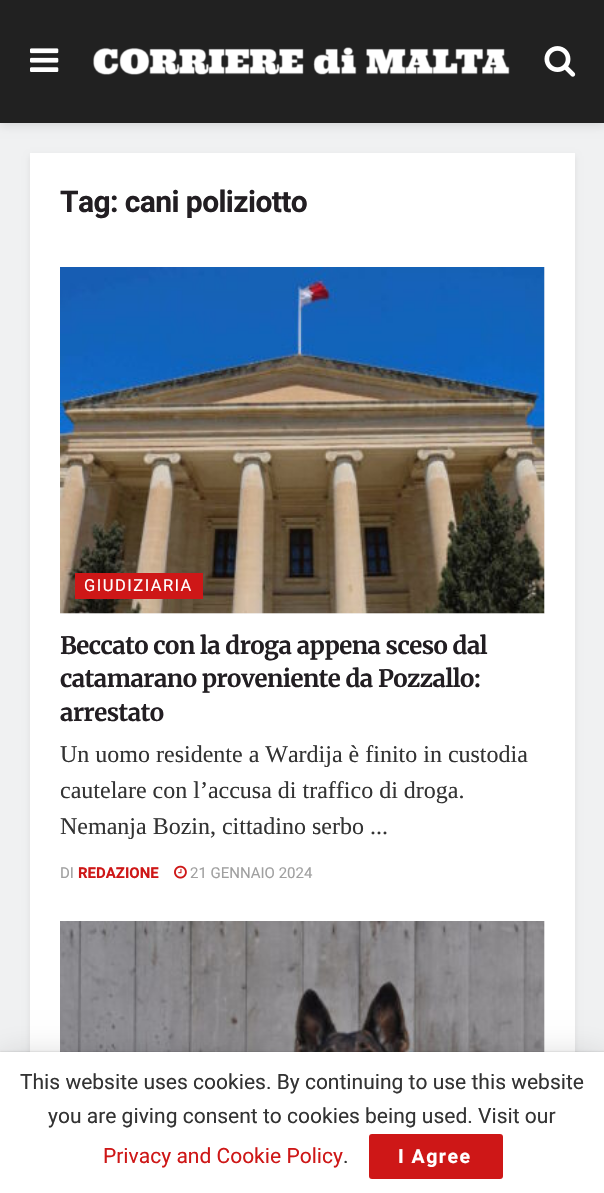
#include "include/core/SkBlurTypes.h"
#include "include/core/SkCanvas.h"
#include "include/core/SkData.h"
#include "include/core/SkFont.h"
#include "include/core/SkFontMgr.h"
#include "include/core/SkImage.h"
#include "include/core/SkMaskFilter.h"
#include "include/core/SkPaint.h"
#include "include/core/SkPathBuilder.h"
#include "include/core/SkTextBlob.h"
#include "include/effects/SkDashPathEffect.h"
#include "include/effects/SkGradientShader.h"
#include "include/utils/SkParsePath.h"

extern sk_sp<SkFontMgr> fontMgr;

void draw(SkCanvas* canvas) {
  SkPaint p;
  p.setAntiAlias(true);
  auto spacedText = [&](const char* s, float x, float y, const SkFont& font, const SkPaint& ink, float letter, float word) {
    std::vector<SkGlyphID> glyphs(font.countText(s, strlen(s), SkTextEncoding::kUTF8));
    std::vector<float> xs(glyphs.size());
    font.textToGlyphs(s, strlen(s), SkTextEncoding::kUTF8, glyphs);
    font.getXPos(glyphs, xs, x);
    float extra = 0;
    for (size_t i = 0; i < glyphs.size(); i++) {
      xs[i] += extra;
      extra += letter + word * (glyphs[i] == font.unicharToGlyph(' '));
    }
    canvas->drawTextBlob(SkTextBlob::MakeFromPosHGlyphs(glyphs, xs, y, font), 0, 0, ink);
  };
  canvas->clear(SkColorSetRGB(240, 241, 242));
  p.setColor(SkColorSetARGB(26, 0, 0, 0));
  p.setMaskFilter(SkMaskFilter::MakeBlur(kNormal_SkBlurStyle, 4.5f));
  canvas->drawRect(SkRect::MakeLTRB(0, 3, 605, 126), p);
  p.setMaskFilter(nullptr);
  p.setColor(SkColorSetRGB(33, 33, 33));
  canvas->drawRect(SkRect::MakeLTRB(0, 0, 604, 123), p);
  canvas->drawImageRect(SkImages::DeferredFromEncodedData(SkData::MakeFromFileName("images/1.png")), SkRect::MakeLTRB(30, 48, 59, 72), SkSamplingOptions());
  canvas->drawImageRect(SkImages::DeferredFromEncodedData(SkData::MakeFromFileName("images/2.png")), SkRect::MakeLTRB(93, 47, 510, 75), SkSamplingOptions());
  canvas->drawImageRect(SkImages::DeferredFromEncodedData(SkData::MakeFromFileName("images/3.png")), SkRect::MakeLTRB(544, 46, 576, 77), SkSamplingOptions());
  p.setColor(SkColorSetARGB(20, 0, 0, 0));
  p.setMaskFilter(SkMaskFilter::MakeBlur(kNormal_SkBlurStyle, 3));
  canvas->drawRect(SkRect::MakeLTRB(30, 156, 575, 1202), p);
  p.setMaskFilter(nullptr);
  p.setColor(SK_ColorWHITE);
  canvas->drawRect(SkRect::MakeLTRB(30, 153, 575, 1052), p);
  p.setColor(SkColorSetRGB(247, 247, 247));
  canvas->drawRect(SkRect::MakeLTRB(60, 267, 545, 614), p);
  canvas->drawImageRect(SkImages::DeferredFromEncodedData(SkData::MakeFromFileName("images/4.png")), SkRect::MakeLTRB(60, 267, 545, 614), SkSamplingOptions());
  p.setColor(SkColorSetRGB(206, 23, 23));
  canvas->drawRect(SkRect::MakeLTRB(75, 573, 203, 599), p);
  canvas->drawImageRect(SkImages::DeferredFromEncodedData(SkData::MakeFromFileName("images/5.png")), SkRect::MakeLTRB(174, 865, 187, 879), SkSamplingOptions());
  p.setColor(SkColorSetRGB(247, 247, 247));
  canvas->drawRect(SkRect::MakeLTRB(544, 921, 545, 1052), p);
  canvas->drawImageRect(SkImages::DeferredFromEncodedData(SkData::MakeFromFileName("images/6.png")), SkRect::MakeLTRB(60, 921, 545, 1052), SkSamplingOptions());
  p.setColor(SkColorSetARGB(38, 0, 0, 0));
  p.setMaskFilter(SkMaskFilter::MakeBlur(kNormal_SkBlurStyle, 15));
  canvas->drawRect(SkRect::MakeLTRB(0, 1055, 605, 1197), p);
  p.setMaskFilter(nullptr);
  p.setColor(SkColorSetARGB(51, 0, 0, 0));
  p.setMaskFilter(SkMaskFilter::MakeBlur(kNormal_SkBlurStyle, 1));
  canvas->drawRect(SkRect::MakeLTRB(0, 1052, 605, 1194), p);
  p.setMaskFilter(nullptr);
  p.setColor(SK_ColorWHITE);
  canvas->drawRect(SkRect::MakeLTRB(0, 1052, 604, 1193), p);
  p.setColor(SkColorSetRGB(206, 23, 23));
  canvas->drawRoundRect(SkRect::MakeLTRB(369, 1134, 503, 1179), 3, 3, p);
  SkFont font1(fontMgr->matchFamilyStyle("Heebo", SkFontStyle::Bold()), 30);
  font1.setSubpixel(true);
  p.setColor(SkColorSetRGB(34, 30, 34));
  spacedText("Tag: cani poliziotto", 60, 212, font1, p, -0.6f, 0);
  SkFont font2(fontMgr->matchFamilyStyle("Heebo", SkFontStyle::Normal()), 16.5f);
  font2.setSubpixel(true);
  p.setColor(SK_ColorWHITE);
  spacedText("GIUDIZIARIA", 84, 591, font2, p, 1.5f, 0);
  SkFont font3(fontMgr->matchFamilyStyle("Merriweather", SkFontStyle::Bold()), 24);
  font3.setSubpixel(true);
  p.setColor(SkColorSetRGB(34, 30, 34));
  spacedText("Beccato con la droga appena sceso dal", 60, 654, font3, p, -0.5f, 0);
  spacedText("catamarano proveniente da Pozzallo:", 60, 687, font3, p, -0.5f, 0);
  spacedText("arrestato", 60, 721, font3, p, -0.5f, 0);
  SkFont font4(fontMgr->matchFamilyStyle("Liberation Serif", SkFontStyle::Normal()), 24);
  font4.setSubpixel(true);
  p.setColor(SkColorSetRGB(51, 51, 51));
  canvas->drawString("Un uomo residente a Wardija è finito in custodia", 60, 762, font4, p);
  canvas->drawString("cautelare con l’accusa di traffico di droga.", 60, 798, font4, p);
  canvas->drawString("Nemanja Bozin, cittadino serbo ...", 60, 834, font4, p);
  SkFont font5(fontMgr->matchFamilyStyle("Heebo", SkFontStyle::Normal()), 15);
  font5.setSubpixel(true);
  p.setColor(SkColorSetRGB(160, 160, 160));
  canvas->drawString("DI", 60, 878, font5, p);
  SkFont font6(fontMgr->matchFamilyStyle("Heebo", SkFontStyle::Bold()), 15);
  font6.setSubpixel(true);
  p.setColor(SkColorSetRGB(206, 23, 23));
  canvas->drawString("REDAZIONE", 78, 878, font6, p);
  p.setColor(SkColorSetRGB(160, 160, 160));
  canvas->drawString("21 GENNAIO 2024", 190, 878, font5, p);
  SkFont font7(fontMgr->matchFamilyStyle("Heebo", SkFontStyle::Normal()), 21);
  font7.setSubpixel(true);
  p.setColor(SkColorSetRGB(51, 51, 51));
  canvas->drawString("This website uses cookies. By continuing to use this website", 20, 1089, font7, p);
  canvas->drawString("you are giving consent to cookies being used. Visit our", 48, 1123, font7, p);
  p.setColor(SkColorSetRGB(206, 23, 23));
  canvas->drawString("Privacy and Cookie Policy", 103, 1163, font7, p);
  p.setColor(SkColorSetRGB(51, 51, 51));
  canvas->drawString(".", 343, 1163, font7, p);
  SkFont font8(fontMgr->matchFamilyStyle("Heebo", SkFontStyle::Bold()), 19.5f);
  font8.setSubpixel(true);
  p.setColor(SK_ColorWHITE);
  spacedText("I Agree", 398, 1163, font8, p, 1.5f, 0);
}
